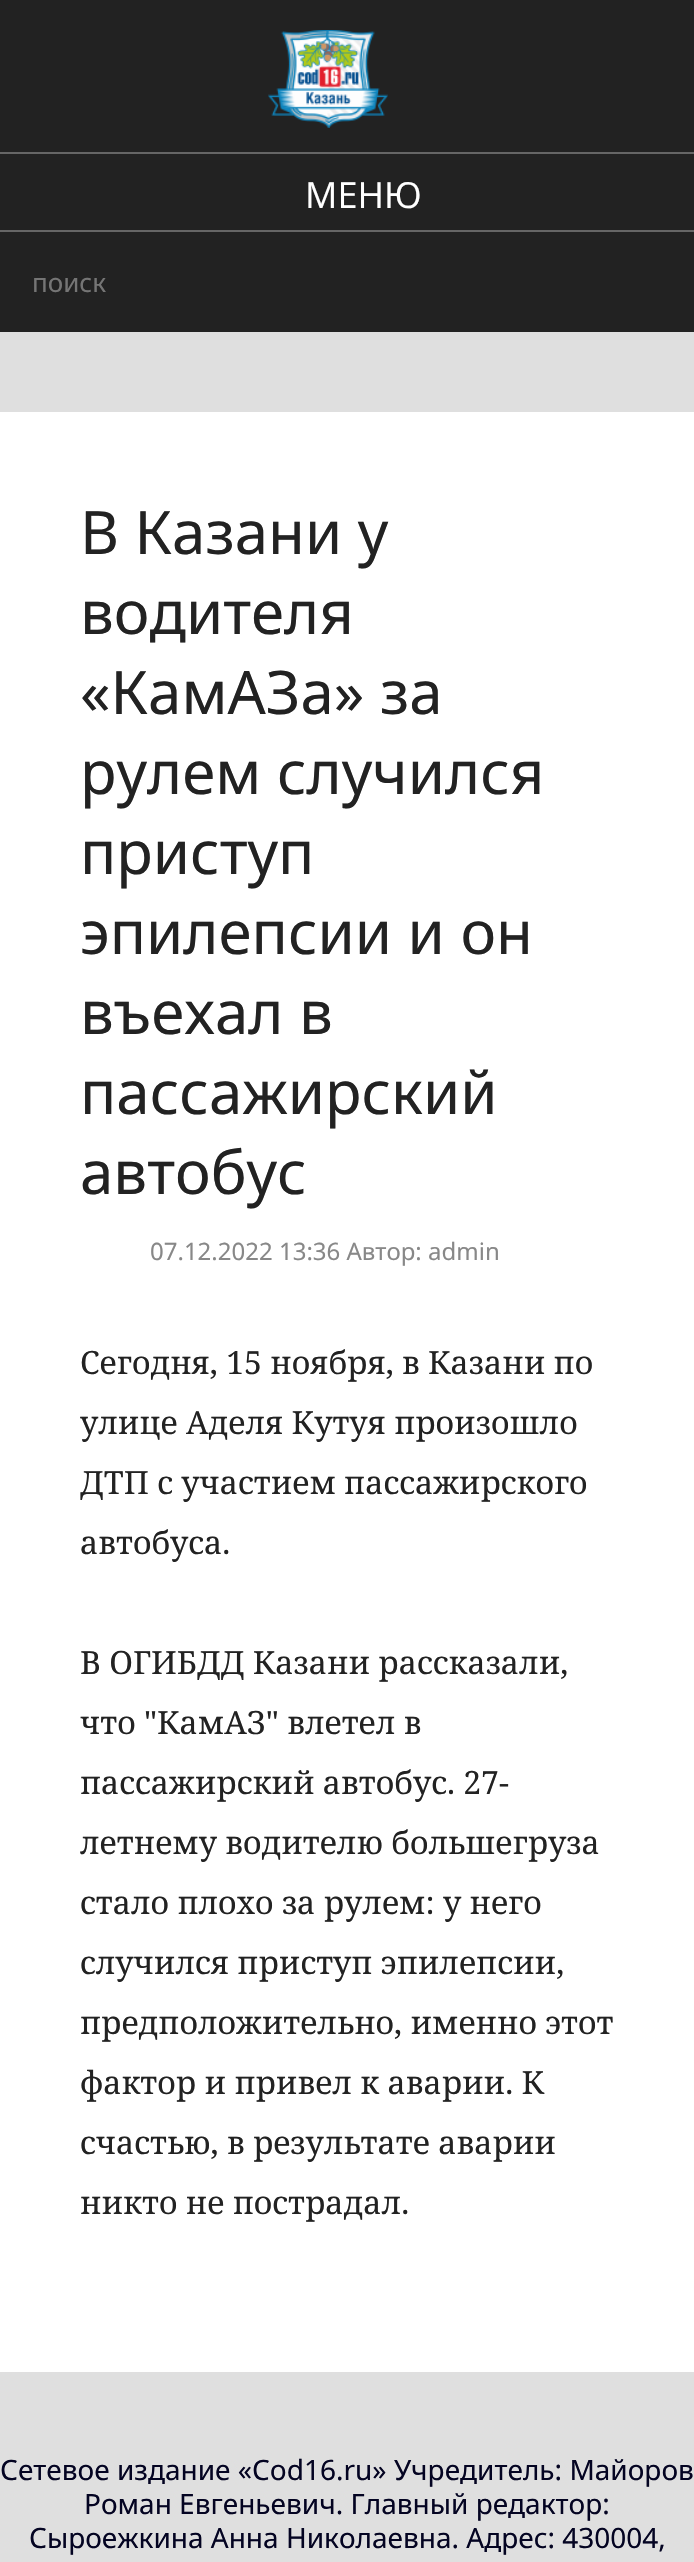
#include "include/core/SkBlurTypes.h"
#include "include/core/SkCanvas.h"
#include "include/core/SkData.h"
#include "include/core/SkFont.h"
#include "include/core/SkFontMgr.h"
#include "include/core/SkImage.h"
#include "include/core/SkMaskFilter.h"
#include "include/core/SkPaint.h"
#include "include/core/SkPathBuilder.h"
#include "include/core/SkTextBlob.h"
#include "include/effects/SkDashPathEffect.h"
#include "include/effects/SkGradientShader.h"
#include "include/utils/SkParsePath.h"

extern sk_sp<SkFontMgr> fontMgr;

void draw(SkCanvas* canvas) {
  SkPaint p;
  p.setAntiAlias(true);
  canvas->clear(SkColorSetRGB(223, 223, 223));
  p.setColor(SkColorSetRGB(34, 34, 34));
  canvas->drawRect(SkRect::MakeLTRB(0, 0, 694, 332), p);
  canvas->drawImageRect(SkImages::DeferredFromEncodedData(SkData::MakeFromFileName("images/1.png")), SkRect::MakeLTRB(268, 30, 388, 128), SkSamplingOptions());
  p.setColor(SkColorSetRGB(102, 102, 102));
  canvas->drawRect(SkRect::MakeLTRB(0, 152, 694, 154), p);
  canvas->drawRect(SkRect::MakeLTRB(0, 230, 694, 232), p);
  p.setColor(SK_ColorWHITE);
  canvas->drawRect(SkRect::MakeLTRB(0, 412, 694, 2372), p);
  SkFont font1(fontMgr->matchFamilyStyle("Open Sans", SkFontStyle::Normal()), 36);
  font1.setSubpixel(true);
  canvas->drawString("МЕНЮ", 305, 208, font1, p);
  SkFont font2(fontMgr->matchFamilyStyle("Noto Sans", SkFontStyle::Normal()), 26);
  font2.setSubpixel(true);
  p.setColor(SkColorSetRGB(117, 117, 117));
  canvas->drawString("поиск", 32, 292, font2, p);
  SkFont font3(fontMgr->matchFamilyStyle("Noto Sans", SkFontStyle::Normal()), 60);
  font3.setSubpixel(true);
  p.setColor(SkColorSetRGB(34, 34, 34));
  canvas->drawString("В Казани у", 80, 554, font3, p);
  canvas->drawString("водителя", 80, 634, font3, p);
  canvas->drawString("«КамАЗа» за", 80, 714, font3, p);
  canvas->drawString("рулем случился", 80, 794, font3, p);
  canvas->drawString("приступ", 80, 874, font3, p);
  canvas->drawString("эпилепсии и он", 80, 954, font3, p);
  canvas->drawString("въехал в", 80, 1034, font3, p);
  canvas->drawString("пассажирский", 80, 1114, font3, p);
  canvas->drawString("автобус", 80, 1194, font3, p);
  SkFont font4(fontMgr->matchFamilyStyle("Noto Sans", SkFontStyle::Normal()), 24);
  font4.setSubpixel(true);
  p.setColor(SkColorSetRGB(136, 136, 136));
  canvas->drawString("07.12.2022 13:36 Автор: admin", 150, 1260, font4, p);
  SkFont font5(fontMgr->matchFamilyStyle("Noto Serif", SkFontStyle::Normal()), 32);
  font5.setSubpixel(true);
  p.setColor(SkColorSetRGB(34, 34, 34));
  canvas->drawString("Сегодня, 15 ноября, в Казани по", 80, 1374, font5, p);
  canvas->drawString("улице Аделя Кутуя произошло", 80, 1434, font5, p);
  canvas->drawString("ДТП с участием пассажирского", 80, 1494, font5, p);
  canvas->drawString("автобуса.", 80, 1554, font5, p);
  canvas->drawString("В ОГИБДД Казани рассказали,", 80, 1674, font5, p);
  canvas->drawString("что \"КамАЗ\" влетел в", 80, 1734, font5, p);
  canvas->drawString("пассажирский автобус. 27-", 80, 1794, font5, p);
  canvas->drawString("летнему водителю большегруза", 80, 1854, font5, p);
  canvas->drawString("стало плохо за рулем: у него", 80, 1914, font5, p);
  canvas->drawString("случился приступ эпилепсии,", 80, 1974, font5, p);
  canvas->drawString("предположительно, именно этот", 80, 2034, font5, p);
  canvas->drawString("фактор и привел к аварии. К", 80, 2094, font5, p);
  canvas->drawString("счастью, в результате аварии", 80, 2154, font5, p);
  canvas->drawString("никто не пострадал.", 80, 2214, font5, p);
  SkFont font6(fontMgr->matchFamilyStyle("Noto Sans", SkFontStyle::Normal()), 28);
  font6.setSubpixel(true);
  p.setColor(SkColorSetRGB(4, 4, 34));
  canvas->drawString("Сетевое издание «Cod16.ru» Учредитель: Майоров", 0, 2480, font6, p);
  canvas->drawString("Роман Евгеньевич. Главный редактор:", 84, 2514, font6, p);
  canvas->drawString("Сыроежкина Анна Николаевна. Адрес: 430004,", 29, 2548, font6, p);
}
